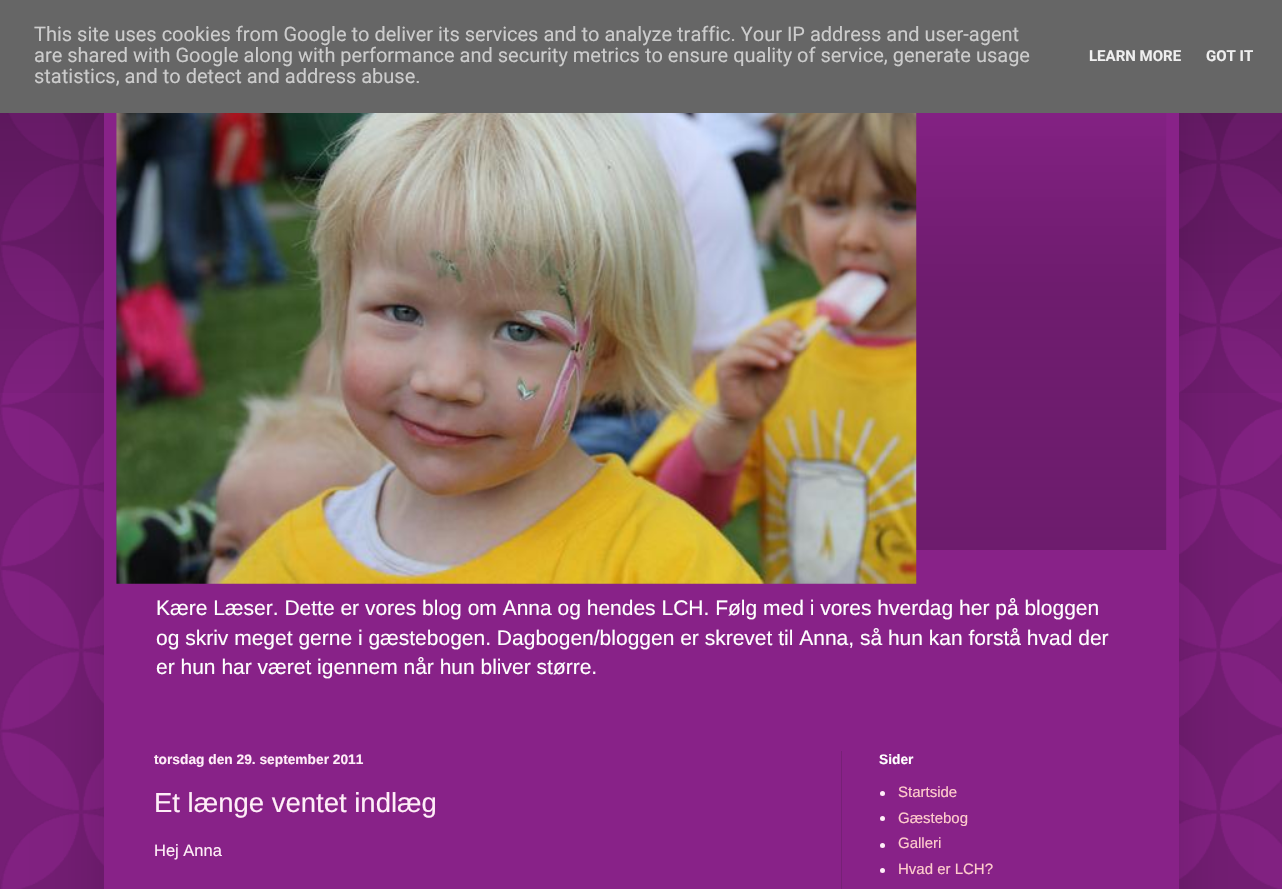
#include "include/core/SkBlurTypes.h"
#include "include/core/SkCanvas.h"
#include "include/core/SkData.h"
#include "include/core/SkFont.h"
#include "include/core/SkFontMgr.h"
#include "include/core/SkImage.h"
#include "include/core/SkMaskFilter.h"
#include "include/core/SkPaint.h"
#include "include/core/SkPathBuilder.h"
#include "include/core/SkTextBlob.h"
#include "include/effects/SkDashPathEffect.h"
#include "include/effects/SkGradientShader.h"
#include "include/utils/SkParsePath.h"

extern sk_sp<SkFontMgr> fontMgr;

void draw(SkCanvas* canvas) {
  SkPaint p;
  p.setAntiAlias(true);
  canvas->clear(SkColorSetRGB(136, 34, 136));
  canvas->drawImageRect(SkImages::DeferredFromEncodedData(SkData::MakeFromFileName("images/1.png")), SkRect::MakeLTRB(0, 113, 1282, 889), SkSamplingOptions());
  canvas->drawImageRect(SkImages::DeferredFromEncodedData(SkData::MakeFromFileName("images/2.png")), SkRect::MakeLTRB(0, 113, 1282, 393), SkSamplingOptions());
  p.setColor(SkColorSetARGB(38, 0, 0, 0));
  p.setMaskFilter(SkMaskFilter::MakeBlur(kNormal_SkBlurStyle, 25));
  canvas->drawRect(SkRect::MakeLTRB(104, 38, 1179, 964), p);
  p.setMaskFilter(nullptr);
  p.setColor(SkColorSetRGB(102, 102, 102));
  canvas->drawRect(SkRect::MakeLTRB(0, 0, 1282, 113), p);
  p.setColor(SkColorSetRGB(136, 34, 136));
  canvas->drawRect(SkRect::MakeLTRB(104, 113, 1179, 889), p);
  canvas->drawImageRect(SkImages::DeferredFromEncodedData(SkData::MakeFromFileName("images/3.png")), SkRect::MakeLTRB(116, 113, 1167, 550), SkSamplingOptions());
  canvas->drawImageRect(SkImages::DeferredFromEncodedData(SkData::MakeFromFileName("images/4.png")), SkRect::MakeLTRB(116, 113, 917, 584), SkSamplingOptions());
  p.setColor(SkColorSetRGB(118, 33, 118));
  canvas->drawRect(SkRect::MakeLTRB(841, 751, 842, 889), p);
  p.setColor(SkColorSetRGB(255, 238, 248));
  canvas->drawCircle(882.5f, 793.5f, 2.5f, p);
  canvas->drawCircle(882.5f, 818.5f, 2.5f, p);
  canvas->drawCircle(882.5f, 845.5f, 2.5f, p);
  canvas->drawCircle(882.5f, 870.5f, 2.5f, p);
  SkFont font1(fontMgr->matchFamilyStyle("Roboto", SkFontStyle::Normal()), 20);
  font1.setSubpixel(true);
  p.setColor(SkColorSetRGB(204, 204, 204));
  canvas->drawString("This site uses cookies from Google to deliver its services and to analyze traffic. Your IP address and user-agent", 34, 41, font1, p);
  canvas->drawString("are shared with Google along with performance and security metrics to ensure quality of service, generate usage", 34, 62, font1, p);
  canvas->drawString("statistics, and to detect and address abuse.", 34, 83, font1, p);
  SkFont font2(fontMgr->matchFamilyStyle("Roboto", SkFontStyle::Bold()), 15);
  font2.setSubpixel(true);
  p.setColor(SkColorSetRGB(238, 238, 238));
  canvas->drawString("LEARN MORE", 1089, 61, font2, p);
  canvas->drawString("GOT IT", 1206, 61, font2, p);
  SkFont font3(fontMgr->matchFamilyStyle("Liberation Sans", SkFontStyle::Normal()), 21);
  font3.setSubpixel(true);
  p.setColor(SK_ColorWHITE);
  canvas->drawString("Kære Læser. Dette er vores blog om Anna og hendes LCH. Følg med i vores hverdag her på bloggen", 156, 615, font3, p);
  canvas->drawString("og skriv meget gerne i gæstebogen. Dagbogen/bloggen er skrevet til Anna, så hun kan forstå hvad der", 156, 645, font3, p);
  canvas->drawString("er hun har været igennem når hun bliver større.", 156, 674, font3, p);
  SkFont font4(fontMgr->matchFamilyStyle("Liberation Sans", SkFontStyle::Bold()), 13.75f);
  font4.setSubpixel(true);
  p.setColor(SkColorSetRGB(255, 238, 248));
  canvas->drawString("torsdag den 29. september 2011", 154, 764, font4, p);
  SkFont font5(fontMgr->matchFamilyStyle("Liberation Sans", SkFontStyle::Normal()), 27.5f);
  font5.setSubpixel(true);
  canvas->drawString("Et længe ventet indlæg", 154, 812, font5, p);
  SkFont font6(fontMgr->matchFamilyStyle("Liberation Sans", SkFontStyle::Normal()), 16.5f);
  font6.setSubpixel(true);
  canvas->drawString("Hej Anna", 154, 856, font6, p);
  p.setColor(SK_ColorWHITE);
  canvas->drawString("Sider", 879, 764, font4, p);
  SkFont font7(fontMgr->matchFamilyStyle("Liberation Sans", SkFontStyle::Normal()), 15);
  font7.setSubpixel(true);
  p.setColor(SkColorSetRGB(255, 204, 204));
  canvas->drawString("Startside", 898, 797, font7, p);
  canvas->drawString("Gæstebog", 898, 823, font7, p);
  canvas->drawString("Galleri", 898, 848, font7, p);
  canvas->drawString("Hvad er LCH?", 898, 874, font7, p);
}
